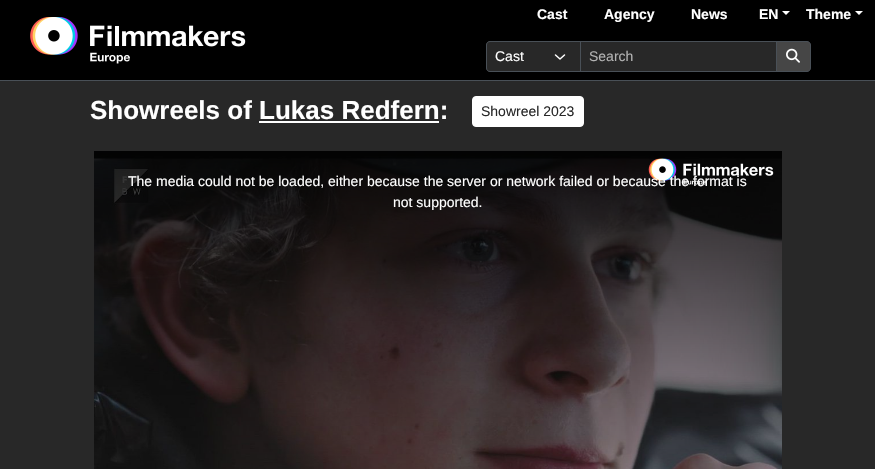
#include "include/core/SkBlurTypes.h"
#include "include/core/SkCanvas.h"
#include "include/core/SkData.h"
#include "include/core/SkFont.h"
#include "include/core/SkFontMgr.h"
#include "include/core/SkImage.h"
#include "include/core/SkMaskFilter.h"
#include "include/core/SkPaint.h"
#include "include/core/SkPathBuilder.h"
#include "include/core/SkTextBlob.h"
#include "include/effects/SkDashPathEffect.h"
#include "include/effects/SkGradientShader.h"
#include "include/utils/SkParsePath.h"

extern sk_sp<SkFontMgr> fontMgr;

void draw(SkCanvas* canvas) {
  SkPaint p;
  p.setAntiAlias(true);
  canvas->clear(SkColorSetRGB(40, 40, 40));
  p.setColor(SK_ColorBLACK);
  canvas->drawRect(SkRect::MakeLTRB(0, 0, 875, 80), p);
  p.setColor(SkColorSetRGB(73, 80, 87));
  canvas->drawRect(SkRect::MakeLTRB(0, 80, 875, 81), p);
  canvas->drawImageRect(SkImages::DeferredFromEncodedData(SkData::MakeFromFileName("images/1.png")), SkRect::MakeLTRB(30, 17, 246, 64), SkSamplingOptions());
  p.setColor(SK_ColorWHITE);
  canvas->drawPath(SkPathBuilder().moveTo(782, 11).lineTo(790, 11).lineTo(786, 15).close().detach(), p);
  canvas->drawPath(SkPathBuilder().moveTo(855, 11).lineTo(863, 11).lineTo(859, 15).close().detach(), p);
  p.setColor(SkColorSetRGB(40, 40, 40));
  canvas->drawPath(SkPathBuilder().moveTo(490, 41).lineTo(581, 41).lineTo(581, 72).lineTo(490, 72).cubicTo(488, 72, 486, 70, 486, 68).lineTo(486, 45).cubicTo(486, 43, 488, 41, 490, 41).close().detach(), p);
  p.setStyle(SkPaint::kStroke_Style);
  p.setStrokeWidth(1.5f);
  p.setStrokeCap(SkPaint::kRound_Cap);
  p.setStrokeJoin(SkPaint::kRound_Join);
  p.setColor(SK_ColorWHITE);
  canvas->drawPath(SkPathBuilder().moveTo(555.5f, 55).lineTo(560, 59).lineTo(564.5f, 55).detach(), p);
  p.setStrokeWidth(1);
  p.setStrokeCap(SkPaint::kButt_Cap);
  p.setStrokeJoin(SkPaint::kMiter_Join);
  p.setColor(SkColorSetRGB(73, 80, 87));
  canvas->drawPath(SkPathBuilder().moveTo(490, 41.5f).lineTo(580.5f, 41.5f).lineTo(580.5f, 71.5f).lineTo(490, 71.5f).cubicTo(488, 71.5f, 486.5f, 70, 486.5f, 68).lineTo(486.5f, 45).cubicTo(486.5f, 43, 488, 41.5f, 490, 41.5f).close().detach(), p);
  p.setStyle(SkPaint::kFill_Style);
  p.setColor(SkColorSetRGB(40, 40, 40));
  canvas->drawRect(SkRect::MakeLTRB(580.5f, 41.5f, 776.5f, 71.5f), p);
  p.setStyle(SkPaint::kStroke_Style);
  p.setColor(SkColorSetRGB(73, 80, 87));
  canvas->drawRect(SkRect::MakeLTRB(580.5f, 41.5f, 776.5f, 71.5f), p);
  p.setStyle(SkPaint::kFill_Style);
  p.setColor(SkColorSetRGB(70, 70, 70));
  canvas->drawPath(SkPathBuilder().moveTo(776.5f, 41.5f).lineTo(807, 41.5f).cubicTo(809, 41.5f, 810.5f, 43, 810.5f, 45).lineTo(810.5f, 68).cubicTo(810.5f, 70, 809, 71.5f, 807, 71.5f).lineTo(776.5f, 71.5f).close().detach(), p);
  p.setStyle(SkPaint::kStroke_Style);
  p.setColor(SkColorSetRGB(73, 80, 87));
  canvas->drawPath(SkPathBuilder().moveTo(776.5f, 41.5f).lineTo(807, 41.5f).cubicTo(809, 41.5f, 810.5f, 43, 810.5f, 45).lineTo(810.5f, 68).cubicTo(810.5f, 70, 809, 71.5f, 807, 71.5f).lineTo(776.5f, 71.5f).close().detach(), p);
  canvas->drawImageRect(SkImages::DeferredFromEncodedData(SkData::MakeFromFileName("images/2.png")), SkRect::MakeLTRB(786, 48, 800, 63), SkSamplingOptions());
  p.setStyle(SkPaint::kFill_Style);
  p.setColor(SK_ColorWHITE);
  canvas->drawRect(SkRect::MakeLTRB(259, 121, 439, 123), p);
  canvas->drawRoundRect(SkRect::MakeLTRB(472.5f, 96.5f, 583.5f, 126.5f), 3.5f, 3.5f, p);
  p.setStyle(SkPaint::kStroke_Style);
  canvas->drawRoundRect(SkRect::MakeLTRB(472.5f, 96.5f, 583.5f, 126.5f), 3.5f, 3.5f, p);
  canvas->drawImageRect(SkImages::DeferredFromEncodedData(SkData::MakeFromFileName("images/3.png")), SkRect::MakeLTRB(94, 151, 782, 469), SkSamplingOptions());
  canvas->drawImageRect(SkImages::DeferredFromEncodedData(SkData::MakeFromFileName("images/4.png")), SkRect::MakeLTRB(648, 158, 774, 186), SkSamplingOptions());
  SkFont font1(fontMgr->matchFamilyStyle("Liberation Sans", SkFontStyle::Bold()), 14);
  font1.setSubpixel(true);
  p.setStyle(SkPaint::kFill_Style);
  canvas->drawString("Cast", 537, 19, font1, p);
  canvas->drawString("Agency", 604, 19, font1, p);
  canvas->drawString("News", 691, 19, font1, p);
  canvas->drawString("EN", 759, 19, font1, p);
  canvas->drawString("Theme", 806, 19, font1, p);
  SkFont font2(fontMgr->matchFamilyStyle("Liberation Sans", SkFontStyle::Normal()), 14);
  font2.setSubpixel(true);
  canvas->drawString("Cast", 495, 61, font2, p);
  p.setColor(SkColorSetRGB(179, 179, 179));
  canvas->drawString("Search", 589, 61, font2, p);
  SkFont font3(fontMgr->matchFamilyStyle("Liberation Sans", SkFontStyle::Bold()), 26);
  font3.setSubpixel(true);
  p.setColor(SK_ColorWHITE);
  canvas->drawString("Showreels of Lukas Redfern:", 90, 119, font3, p);
  p.setColor(SkColorSetRGB(40, 40, 40));
  canvas->drawString("Showreel 2023", 481, 116, font2, p);
  p.setColor(SK_ColorWHITE);
  canvas->drawString("The media could not be loaded, either because the server or network failed or because the format is", 128, 186, font2, p);
  canvas->drawString("not supported.", 393, 207, font2, p);
}
